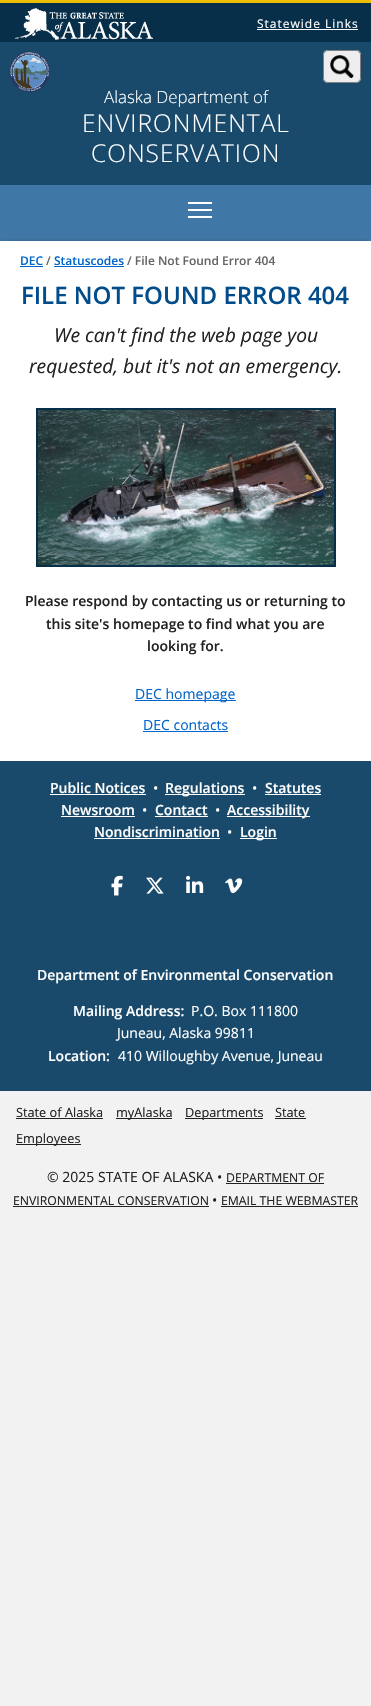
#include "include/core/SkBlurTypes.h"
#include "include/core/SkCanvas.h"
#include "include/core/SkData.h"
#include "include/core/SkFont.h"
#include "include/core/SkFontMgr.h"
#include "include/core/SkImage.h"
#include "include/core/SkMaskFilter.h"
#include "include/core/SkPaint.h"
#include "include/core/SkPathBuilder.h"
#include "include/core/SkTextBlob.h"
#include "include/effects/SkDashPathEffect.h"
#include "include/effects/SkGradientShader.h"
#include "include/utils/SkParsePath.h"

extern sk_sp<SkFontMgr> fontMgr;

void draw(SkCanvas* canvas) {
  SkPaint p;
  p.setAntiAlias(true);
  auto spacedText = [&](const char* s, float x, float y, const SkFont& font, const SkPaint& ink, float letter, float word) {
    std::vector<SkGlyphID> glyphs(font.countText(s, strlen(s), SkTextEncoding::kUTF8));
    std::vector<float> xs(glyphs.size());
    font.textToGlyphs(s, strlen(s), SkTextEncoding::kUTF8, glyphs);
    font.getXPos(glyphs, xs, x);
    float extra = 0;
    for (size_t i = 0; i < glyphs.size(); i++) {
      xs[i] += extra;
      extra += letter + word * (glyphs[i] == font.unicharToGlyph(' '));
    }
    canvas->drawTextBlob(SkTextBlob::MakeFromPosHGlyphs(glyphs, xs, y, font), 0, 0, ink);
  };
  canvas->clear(SkColorSetRGB(242, 242, 242));
  p.setColor(SkColorSetRGB(7, 47, 73));
  canvas->drawRect(SkRect::MakeLTRB(0, 3, 371, 42), p);
  p.setColor(SkColorSetRGB(237, 189, 3));
  canvas->drawRect(SkRect::MakeLTRB(0, 0, 371, 3), p);
  canvas->drawImageRect(SkImages::DeferredFromEncodedData(SkData::MakeFromFileName("images/1.png")), SkRect::MakeLTRB(15, 8, 153, 40), SkSamplingOptions());
  p.setColor(SK_ColorWHITE);
  canvas->drawRect(SkRect::MakeLTRB(257, 29, 358, 30), p);
  p.setColor(SkColorSetRGB(25, 74, 107));
  canvas->drawRect(SkRect::MakeLTRB(0, 42, 371, 185), p);
  p.setColor(SkColorSetRGB(238, 238, 238));
  canvas->drawRoundRect(SkRect::MakeLTRB(323, 50, 361, 83), 5, 5, p);
  canvas->drawImageRect(SkImages::DeferredFromEncodedData(SkData::MakeFromFileName("images/2.png")), SkRect::MakeLTRB(330, 55, 354, 78), SkSamplingOptions());
  p.setStyle(SkPaint::kStroke_Style);
  p.setStrokeWidth(1);
  p.setColor(SkColorSetRGB(128, 128, 128));
  canvas->drawRoundRect(SkRect::MakeLTRB(323.5f, 50.5f, 360.5f, 82.5f), 4.5f, 4.5f, p);
  canvas->drawImageRect(SkImages::DeferredFromEncodedData(SkData::MakeFromFileName("images/3.png")), SkRect::MakeLTRB(9, 51, 50, 93), SkSamplingOptions());
  p.setStyle(SkPaint::kFill_Style);
  p.setColor(SkColorSetRGB(63, 120, 167));
  canvas->drawRect(SkRect::MakeLTRB(0, 185, 371, 241), p);
  p.setColor(SK_ColorWHITE);
  canvas->drawRect(SkRect::MakeLTRB(188, 209, 212, 211), p);
  canvas->drawRect(SkRect::MakeLTRB(188, 202, 212, 204), p);
  canvas->drawRect(SkRect::MakeLTRB(188, 216, 212, 218), p);
  p.setColor(SkColorSetRGB(34, 34, 34));
  p.setMaskFilter(SkMaskFilter::MakeBlur(kNormal_SkBlurStyle, 3));
  canvas->drawRect(SkRect::MakeLTRB(3, 244, 368, 758), p);
  p.setMaskFilter(nullptr);
  p.setColor(SK_ColorWHITE);
  canvas->drawRect(SkRect::MakeLTRB(0, 241, 371, 761), p);
  p.setColor(SkColorSetRGB(0, 102, 204));
  canvas->drawRect(SkRect::MakeLTRB(20, 266, 43, 267), p);
  canvas->drawRect(SkRect::MakeLTRB(54, 266, 124, 267), p);
  p.setStyle(SkPaint::kStroke_Style);
  p.setStrokeWidth(2);
  p.setColor(SkColorSetRGB(7, 47, 73));
  canvas->drawRect(SkRect::MakeLTRB(37, 409, 335, 566), p);
  canvas->drawImageRect(SkImages::DeferredFromEncodedData(SkData::MakeFromFileName("images/4.png")), SkRect::MakeLTRB(38, 410, 334, 565), SkSamplingOptions());
  p.setStyle(SkPaint::kFill_Style);
  p.setColor(SkColorSetRGB(0, 102, 204));
  canvas->drawRect(SkRect::MakeLTRB(135, 700, 236, 701), p);
  canvas->drawRect(SkRect::MakeLTRB(143, 731, 228, 732), p);
  p.setColor(SkColorSetRGB(25, 74, 107));
  canvas->drawRect(SkRect::MakeLTRB(0, 761, 371, 1091), p);
  p.setColor(SK_ColorWHITE);
  canvas->drawRect(SkRect::MakeLTRB(50, 794, 146, 795), p);
  canvas->drawRect(SkRect::MakeLTRB(165, 794, 245, 795), p);
  canvas->drawRect(SkRect::MakeLTRB(265, 794, 321, 795), p);
  canvas->drawRect(SkRect::MakeLTRB(61, 816, 135, 817), p);
  canvas->drawRect(SkRect::MakeLTRB(155, 816, 208, 817), p);
  canvas->drawRect(SkRect::MakeLTRB(227, 816, 310, 817), p);
  canvas->drawRect(SkRect::MakeLTRB(94, 838, 220, 839), p);
  canvas->drawRect(SkRect::MakeLTRB(240, 838, 277, 839), p);
  canvas->drawImageRect(SkImages::DeferredFromEncodedData(SkData::MakeFromFileName("images/5.png")), SkRect::MakeLTRB(111, 875, 123, 896), SkSamplingOptions());
  canvas->drawImageRect(SkImages::DeferredFromEncodedData(SkData::MakeFromFileName("images/6.png")), SkRect::MakeLTRB(146, 877, 164, 894), SkSamplingOptions());
  canvas->drawImageRect(SkImages::DeferredFromEncodedData(SkData::MakeFromFileName("images/7.png")), SkRect::MakeLTRB(186, 875, 204, 893), SkSamplingOptions());
  canvas->drawImageRect(SkImages::DeferredFromEncodedData(SkData::MakeFromFileName("images/8.png")), SkRect::MakeLTRB(225, 878, 243, 894), SkSamplingOptions());
  p.setColor(SkColorSetRGB(34, 34, 34));
  canvas->drawRect(SkRect::MakeLTRB(16, 1118, 103, 1119), p);
  canvas->drawRect(SkRect::MakeLTRB(116, 1118, 172, 1119), p);
  canvas->drawRect(SkRect::MakeLTRB(185, 1118, 263, 1119), p);
  canvas->drawRect(SkRect::MakeLTRB(275, 1118, 306, 1119), p);
  canvas->drawRect(SkRect::MakeLTRB(16, 1144, 81, 1145), p);
  canvas->drawRect(SkRect::MakeLTRB(226, 1183, 324, 1184), p);
  canvas->drawRect(SkRect::MakeLTRB(13, 1206, 209, 1207), p);
  canvas->drawRect(SkRect::MakeLTRB(221, 1206, 358, 1207), p);
  SkFont font1(fontMgr->matchFamilyStyle("Open Sans", SkFontStyle::Normal()), 12);
  font1.setSubpixel(true);
  p.setColor(SK_ColorWHITE);
  spacedText("Statewide Links", 257, 28, font1, p, 1, 0);
  SkFont font2(fontMgr->matchFamilyStyle("Open Sans", SkFontStyle(300, SkFontStyle::kNormal_Width, SkFontStyle::kUpright_Slant)), 16.9f);
  font2.setSubpixel(true);
  canvas->drawString("Alaska Department of", 104, 103, font2, p);
  SkFont font3(fontMgr->matchFamilyStyle("Open Sans", SkFontStyle(300, SkFontStyle::kNormal_Width, SkFontStyle::kUpright_Slant)), 24.5f);
  font3.setSubpixel(true);
  spacedText("ENVIRONMENTAL", 82, 132, font3, p, 1, 0);
  spacedText("CONSERVATION", 91, 162, font3, p, 1, 0);
  SkFont font4(fontMgr->matchFamilyStyle("Open Sans", SkFontStyle(600, SkFontStyle::kNormal_Width, SkFontStyle::kUpright_Slant)), 12);
  font4.setSubpixel(true);
  p.setColor(SkColorSetRGB(0, 102, 204));
  canvas->drawString("DEC", 20, 265, font4, p);
  p.setColor(SkColorSetRGB(102, 102, 102));
  canvas->drawString("/", 46, 265, font4, p);
  p.setColor(SkColorSetRGB(0, 102, 204));
  canvas->drawString("Statuscodes", 54, 265, font4, p);
  p.setColor(SkColorSetRGB(102, 102, 102));
  canvas->drawString("/ File Not Found Error 404", 127, 265, font4, p);
  SkFont font5(fontMgr->matchFamilyStyle("Open Sans", SkFontStyle(600, SkFontStyle::kNormal_Width, SkFontStyle::kUpright_Slant)), 24);
  font5.setSubpixel(true);
  p.setColor(SkColorSetRGB(1, 76, 139));
  canvas->drawString("FILE NOT FOUND ERROR 404", 21, 304, font5, p);
  SkFont font6(fontMgr->matchFamilyStyle("Open Sans", SkFontStyle::Italic()), 19.25f);
  font6.setSubpixel(true);
  p.setColor(SkColorSetRGB(34, 34, 34));
  canvas->drawString("We can't find the web page you", 54, 342, font6, p);
  canvas->drawString("requested, but it's not an emergency.", 29, 373, font6, p);
  SkFont font7(fontMgr->matchFamilyStyle("Open Sans", SkFontStyle(600, SkFontStyle::kNormal_Width, SkFontStyle::kUpright_Slant)), 14);
  font7.setSubpixel(true);
  canvas->drawString("Please respond by contacting us or returning to", 25, 606, font7, p);
  canvas->drawString("this site's homepage to find what you are", 46, 629, font7, p);
  canvas->drawString("looking for.", 147, 651, font7, p);
  SkFont font8(fontMgr->matchFamilyStyle("Open Sans", SkFontStyle::Normal()), 14);
  font8.setSubpixel(true);
  p.setColor(SkColorSetRGB(0, 102, 204));
  canvas->drawString("DEC homepage", 135, 699, font8, p);
  canvas->drawString("DEC contacts", 143, 730, font8, p);
  p.setColor(SK_ColorWHITE);
  canvas->drawString("Public Notices", 50, 793, font7, p);
  canvas->drawString("•", 153, 793, font8, p);
  canvas->drawString("Regulations", 165, 793, font7, p);
  canvas->drawString("•", 252, 793, font8, p);
  canvas->drawString("Statutes", 265, 793, font7, p);
  canvas->drawString("Newsroom", 61, 815, font7, p);
  canvas->drawString("•", 142, 815, font8, p);
  canvas->drawString("Contact", 155, 815, font7, p);
  canvas->drawString("•", 215, 815, font8, p);
  canvas->drawString("Accessibility", 227, 815, font7, p);
  canvas->drawString("Nondiscrimination", 94, 837, font7, p);
  canvas->drawString("•", 227, 837, font8, p);
  canvas->drawString("Login", 240, 837, font7, p);
  canvas->drawString("Department of Environmental Conservation", 37, 980, font7, p);
  canvas->drawString("Mailing Address:", 73, 1016, font7, p);
  canvas->drawString("P.O. Box 111800", 191, 1016, font8, p);
  canvas->drawString("Juneau, Alaska 99811", 117, 1038, font8, p);
  canvas->drawString("Location:", 48, 1061, font7, p);
  canvas->drawString("410 Willoughby Avenue, Juneau", 118, 1061, font8, p);
  SkFont font9(fontMgr->matchFamilyStyle("Open Sans", SkFontStyle::Normal()), 12.75f);
  font9.setSubpixel(true);
  p.setColor(SkColorSetRGB(34, 34, 34));
  canvas->drawString("State of Alaska", 16, 1117, font9, p);
  canvas->drawString("myAlaska", 116, 1117, font9, p);
  canvas->drawString("Departments", 185, 1117, font9, p);
  canvas->drawString("State", 275, 1117, font9, p);
  canvas->drawString("Employees", 16, 1143, font9, p);
  canvas->drawString("© 2025 STATE OF ALASKA •", 47, 1182, font8, p);
  SkFont font10(fontMgr->matchFamilyStyle("Open Sans", SkFontStyle::Normal()), 12.25f);
  font10.setSubpixel(true);
  canvas->drawString("DEPARTMENT OF", 226, 1182, font10, p);
  canvas->drawString("ENVIRONMENTAL CONSERVATION", 13, 1205, font10, p);
  canvas->drawString("•", 212, 1205, font8, p);
  canvas->drawString("EMAIL THE WEBMASTER", 221, 1205, font10, p);
}
